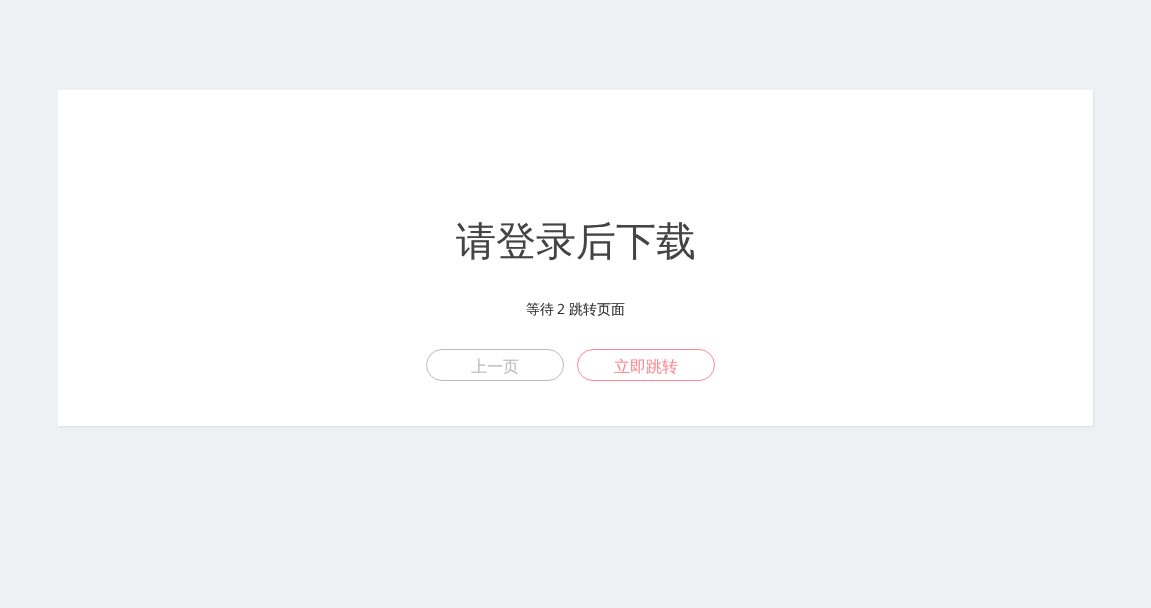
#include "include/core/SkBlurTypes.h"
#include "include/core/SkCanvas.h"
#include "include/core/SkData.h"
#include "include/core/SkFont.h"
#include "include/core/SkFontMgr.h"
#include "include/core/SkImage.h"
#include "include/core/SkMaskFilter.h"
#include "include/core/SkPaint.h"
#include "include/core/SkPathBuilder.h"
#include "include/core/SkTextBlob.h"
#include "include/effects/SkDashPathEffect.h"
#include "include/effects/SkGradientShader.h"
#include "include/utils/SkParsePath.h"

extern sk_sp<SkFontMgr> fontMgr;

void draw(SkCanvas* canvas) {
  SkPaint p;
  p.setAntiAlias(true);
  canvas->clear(SkColorSetRGB(237, 241, 244));
  p.setColor(SkColorSetARGB(26, 99, 99, 99));
  p.setMaskFilter(SkMaskFilter::MakeBlur(kNormal_SkBlurStyle, 0.5f));
  canvas->drawRect(SkRect::MakeLTRB(59, 91, 1094, 427), p);
  p.setMaskFilter(nullptr);
  p.setColor(SK_ColorWHITE);
  canvas->drawRect(SkRect::MakeLTRB(58, 90, 1093, 426), p);
  p.setStyle(SkPaint::kStroke_Style);
  p.setStrokeWidth(1);
  p.setColor(SkColorSetRGB(187, 187, 187));
  canvas->drawRoundRect(SkRect::MakeLTRB(426.5f, 349.5f, 563.5f, 380.5f), 15.5f, 15.5f, p);
  p.setColor(SkColorSetRGB(255, 137, 146));
  canvas->drawRoundRect(SkRect::MakeLTRB(577.5f, 349.5f, 714.5f, 380.5f), 15.5f, 15.5f, p);
  SkFont font1(fontMgr->matchFamilyStyle("WenQuanYi Zen Hei", SkFontStyle(500, SkFontStyle::kNormal_Width, SkFontStyle::kUpright_Slant)), 40);
  font1.setSubpixel(true);
  p.setStyle(SkPaint::kFill_Style);
  p.setColor(SkColorSetRGB(68, 68, 68));
  canvas->drawString("请登录后下载", 456, 255, font1, p);
  SkFont font2(fontMgr->matchFamilyStyle("WenQuanYi Zen Hei", SkFontStyle(500, SkFontStyle::kNormal_Width, SkFontStyle::kUpright_Slant)), 14);
  font2.setSubpixel(true);
  p.setColor(SkColorSetRGB(51, 51, 51));
  canvas->drawString("等待", 526, 314, font2, p);
  SkFont font3(fontMgr->matchFamilyStyle("Open Sans", SkFontStyle::Normal()), 14);
  font3.setSubpixel(true);
  canvas->drawString("2", 557, 314, font3, p);
  canvas->drawString("跳转页面", 569, 314, font2, p);
  SkFont font4(fontMgr->matchFamilyStyle("WenQuanYi Zen Hei", SkFontStyle(500, SkFontStyle::kNormal_Width, SkFontStyle::kUpright_Slant)), 16);
  font4.setSubpixel(true);
  p.setColor(SkColorSetRGB(187, 187, 187));
  canvas->drawString("上一页", 471, 372, font4, p);
  p.setColor(SkColorSetRGB(255, 137, 146));
  canvas->drawString("立即跳转", 614, 372, font4, p);
}
